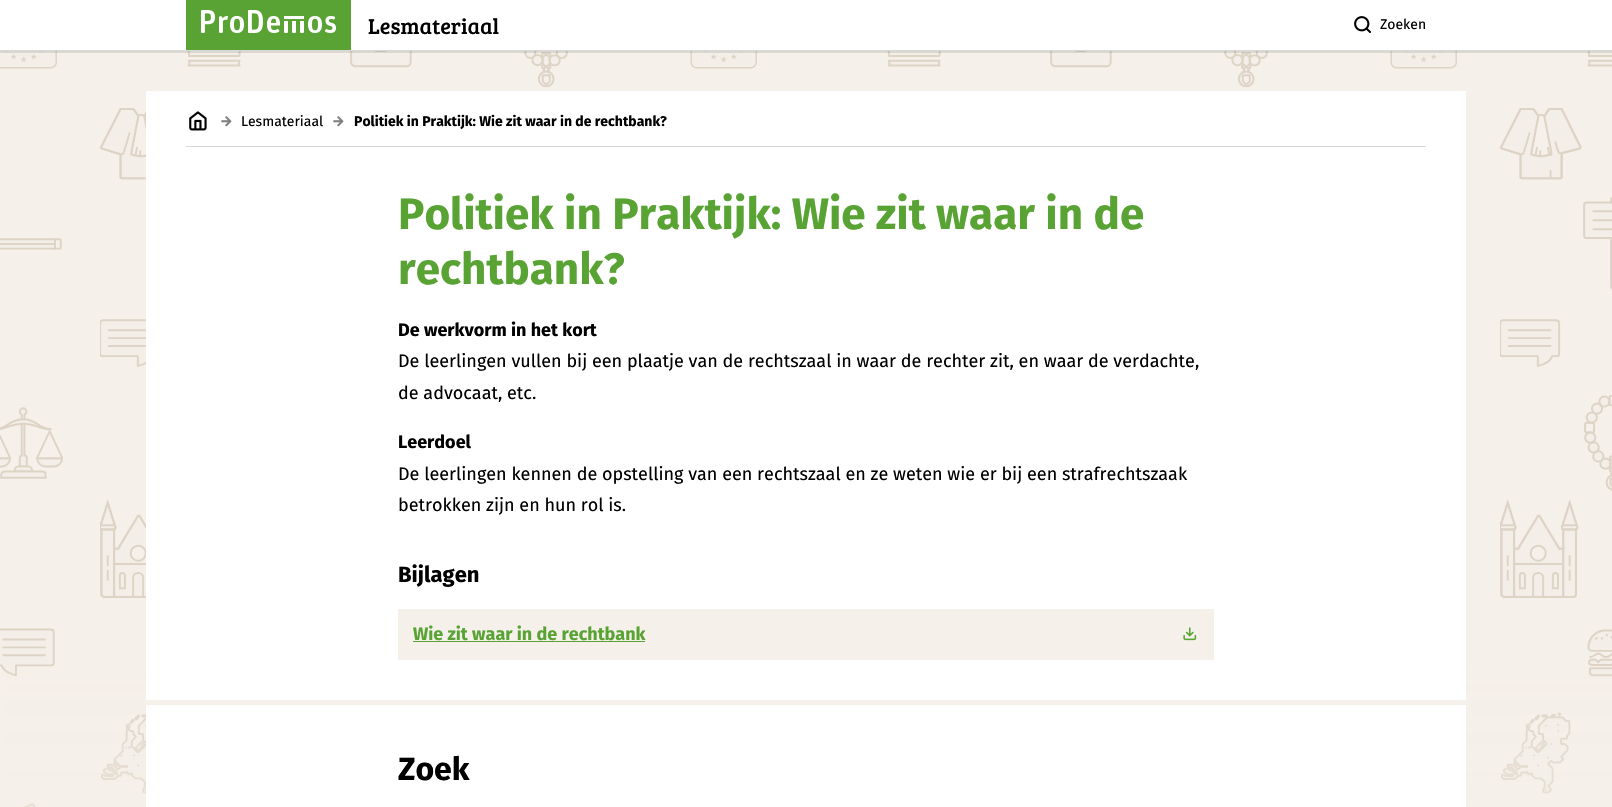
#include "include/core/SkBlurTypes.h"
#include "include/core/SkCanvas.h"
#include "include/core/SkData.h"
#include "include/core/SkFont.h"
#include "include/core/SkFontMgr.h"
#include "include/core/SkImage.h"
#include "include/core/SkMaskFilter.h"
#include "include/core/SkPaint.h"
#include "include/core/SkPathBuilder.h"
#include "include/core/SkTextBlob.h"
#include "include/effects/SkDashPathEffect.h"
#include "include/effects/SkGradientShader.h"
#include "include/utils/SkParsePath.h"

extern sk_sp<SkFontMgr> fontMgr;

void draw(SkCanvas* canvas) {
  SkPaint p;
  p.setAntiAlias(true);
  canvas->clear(SkColorSetRGB(245, 240, 233));
  canvas->drawImageRect(SkImages::DeferredFromEncodedData(SkData::MakeFromFileName("images/1.png")), SkRect::MakeLTRB(0, 51, 1612, 807), SkSamplingOptions());
  p.setColor(SkColorSetARGB(26, 0, 0, 0));
  canvas->drawRect(SkRect::MakeLTRB(0, 51, 1612, 53), p);
  p.setColor(SK_ColorWHITE);
  canvas->drawRect(SkRect::MakeLTRB(0, 0, 1612, 50), p);
  p.setColor(SkColorSetRGB(88, 163, 51));
  canvas->drawRect(SkRect::MakeLTRB(186, 0, 351, 50), p);
  canvas->drawImageRect(SkImages::DeferredFromEncodedData(SkData::MakeFromFileName("images/2.png")), SkRect::MakeLTRB(201, 10, 336, 33), SkSamplingOptions());
  canvas->drawImageRect(SkImages::DeferredFromEncodedData(SkData::MakeFromFileName("images/3.png")), SkRect::MakeLTRB(1354, 16, 1371, 33), SkSamplingOptions());
  p.setColor(SkColorSetRGB(216, 216, 216));
  canvas->drawRect(SkRect::MakeLTRB(0, 50, 1612, 51), p);
  {
    const SkColor colors[] = {SkColorSetRGB(245, 240, 233), SkColorSetARGB(0, 245, 240, 233)};
    const float stops[] = {0.1f, 1};
    const SkPoint ends[] = {{806, 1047}, {806, 647}};
    p.setShader(SkGradientShader::MakeLinear(ends, colors, stops, 2, SkTileMode::kClamp));
    p.setAlpha(255);
  }
  canvas->drawRect(SkRect::MakeLTRB(6, 671, 1612, 807), p);
  p.setShader(nullptr);
  p.setColor(SK_ColorWHITE);
  canvas->drawRect(SkRect::MakeLTRB(146, 91, 1466, 807), p);
  canvas->drawImageRect(SkImages::DeferredFromEncodedData(SkData::MakeFromFileName("images/4.png")), SkRect::MakeLTRB(189, 111, 207, 131), SkSamplingOptions());
  canvas->drawImageRect(SkImages::DeferredFromEncodedData(SkData::MakeFromFileName("images/5.png")), SkRect::MakeLTRB(221, 116, 232, 127), SkSamplingOptions());
  canvas->drawImageRect(SkImages::DeferredFromEncodedData(SkData::MakeFromFileName("images/5.png")), SkRect::MakeLTRB(333, 116, 344, 127), SkSamplingOptions());
  p.setColor(SkColorSetRGB(216, 216, 216));
  canvas->drawRect(SkRect::MakeLTRB(186, 146, 1426, 147), p);
  p.setColor(SkColorSetRGB(245, 240, 233));
  canvas->drawRect(SkRect::MakeLTRB(398, 609, 1214, 660), p);
  p.setColor(SkColorSetRGB(88, 163, 51));
  canvas->drawRect(SkRect::MakeLTRB(413, 641, 645, 642), p);
  canvas->drawImageRect(SkImages::DeferredFromEncodedData(SkData::MakeFromFileName("images/6.png")), SkRect::MakeLTRB(1183, 627, 1197, 641), SkSamplingOptions());
  p.setColor(SkColorSetRGB(245, 240, 233));
  canvas->drawRect(SkRect::MakeLTRB(146, 700, 1466, 705), p);
  SkFont font1(fontMgr->matchFamilyStyle("Bree Serif", SkFontStyle::Normal()), 22);
  font1.setSubpixel(true);
  p.setColor(SK_ColorBLACK);
  canvas->drawString("Lesmateriaal", 368, 34, font1, p);
  SkFont font2(fontMgr->matchFamilyStyle("Fira Sans", SkFontStyle::Normal()), 14);
  font2.setSubpixel(true);
  canvas->drawString("Zoeken", 1380, 29, font2, p);
  canvas->drawString("Lesmateriaal", 241, 126, font2, p);
  SkFont font3(fontMgr->matchFamilyStyle("Fira Sans", SkFontStyle::Bold()), 14);
  font3.setSubpixel(true);
  canvas->drawString("Politiek in Praktijk: Wie zit waar in de rechtbank?", 354, 126, font3, p);
  SkFont font4(fontMgr->matchFamilyStyle("Fira Sans", SkFontStyle::Bold()), 44);
  font4.setSubpixel(true);
  p.setColor(SkColorSetRGB(88, 163, 51));
  canvas->drawString("Politiek in Praktijk: Wie zit waar in de", 398, 229, font4, p);
  canvas->drawString("rechtbank?", 398, 284, font4, p);
  SkFont font5(fontMgr->matchFamilyStyle("Fira Sans", SkFontStyle::Bold()), 18);
  font5.setSubpixel(true);
  p.setColor(SK_ColorBLACK);
  canvas->drawString("De werkvorm in het kort", 398, 336, font5, p);
  SkFont font6(fontMgr->matchFamilyStyle("Fira Sans", SkFontStyle::Normal()), 18);
  font6.setSubpixel(true);
  canvas->drawString("De leerlingen vullen bij een plaatje van de rechtszaal in waar de rechter zit, en waar de verdachte,", 398, 367, font6, p);
  canvas->drawString("de advocaat, etc.", 398, 399, font6, p);
  canvas->drawString("Leerdoel", 398, 448, font5, p);
  canvas->drawString("De leerlingen kennen de opstelling van een rechtszaal en ze weten wie er bij een strafrechtszaak", 398, 480, font6, p);
  canvas->drawString("betrokken zijn en hun rol is.", 398, 511, font6, p);
  SkFont font7(fontMgr->matchFamilyStyle("Fira Sans", SkFontStyle::Bold()), 22);
  font7.setSubpixel(true);
  canvas->drawString("Bijlagen", 398, 582, font7, p);
  p.setColor(SkColorSetRGB(88, 163, 51));
  canvas->drawString("Wie zit waar in de rechtbank", 413, 640, font5, p);
  SkFont font8(fontMgr->matchFamilyStyle("Fira Sans", SkFontStyle::Bold()), 32);
  font8.setSubpixel(true);
  p.setColor(SK_ColorBLACK);
  canvas->drawString("Zoek", 398, 780, font8, p);
}
